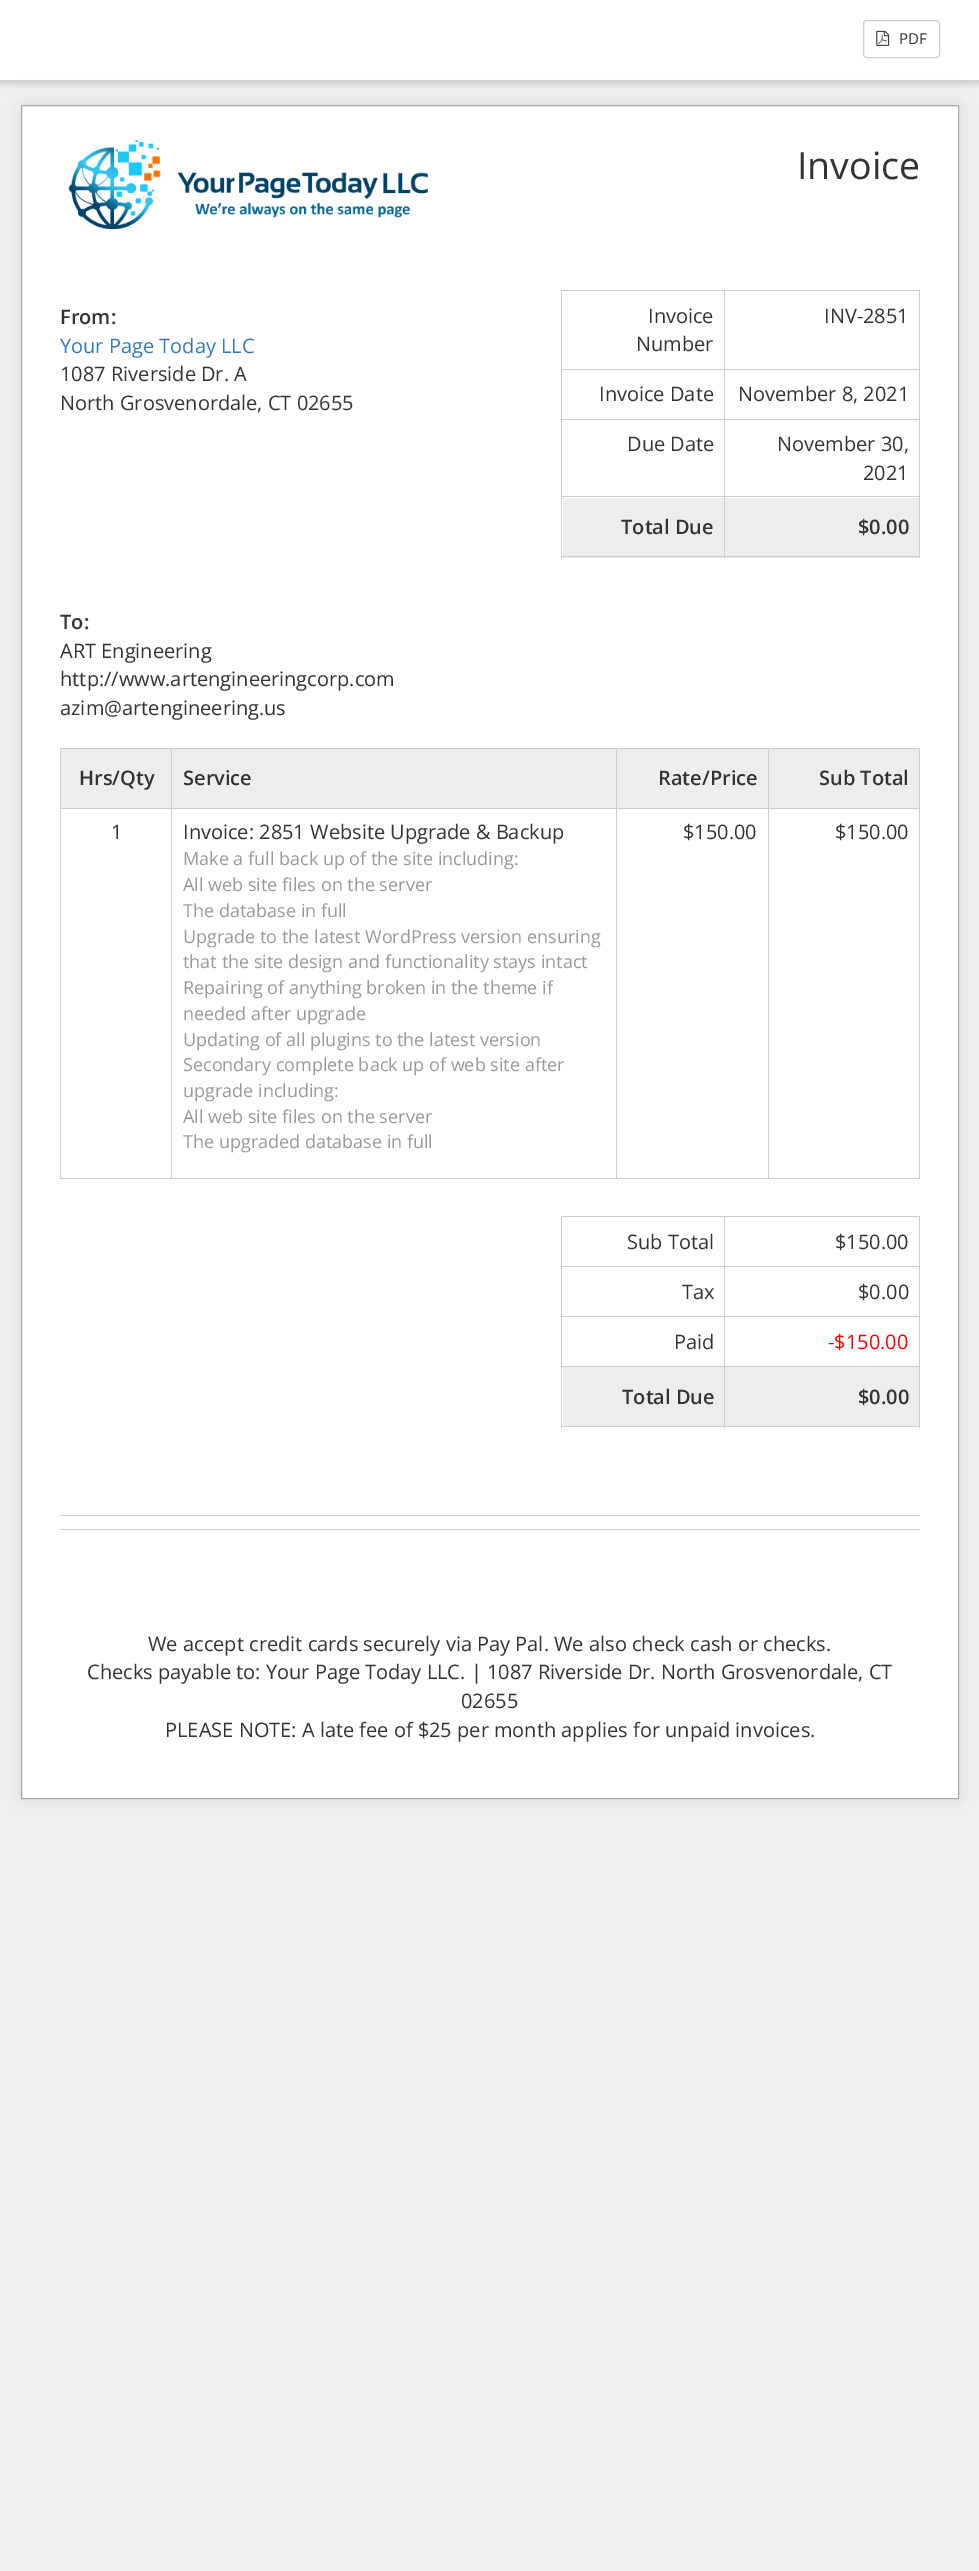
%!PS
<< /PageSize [979 2571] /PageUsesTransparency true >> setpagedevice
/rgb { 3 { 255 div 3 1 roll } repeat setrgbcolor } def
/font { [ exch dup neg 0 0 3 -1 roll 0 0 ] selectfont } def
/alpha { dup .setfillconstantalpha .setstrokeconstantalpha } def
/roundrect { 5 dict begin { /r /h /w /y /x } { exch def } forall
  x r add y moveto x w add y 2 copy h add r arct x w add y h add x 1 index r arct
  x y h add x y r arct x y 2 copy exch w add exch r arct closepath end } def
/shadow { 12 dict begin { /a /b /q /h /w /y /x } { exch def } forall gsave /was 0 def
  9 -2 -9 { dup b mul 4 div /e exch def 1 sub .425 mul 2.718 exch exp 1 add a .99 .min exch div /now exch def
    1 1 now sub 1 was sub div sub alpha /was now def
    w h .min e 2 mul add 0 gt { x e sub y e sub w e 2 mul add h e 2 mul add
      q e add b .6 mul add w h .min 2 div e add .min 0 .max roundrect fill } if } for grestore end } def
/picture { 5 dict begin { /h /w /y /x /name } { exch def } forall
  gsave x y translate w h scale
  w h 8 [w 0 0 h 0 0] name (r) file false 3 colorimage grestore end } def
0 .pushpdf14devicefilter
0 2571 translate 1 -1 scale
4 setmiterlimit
242 241 239 rgb
0 0 979 2571 rectfill
0 0 0 rgb
-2 -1 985 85 0 3 0.15 shadow
255 255 255 rgb
0 0 979 80 rectfill
204 204 204 rgb
863.5 20.5 76 37 3.5 roundrect stroke
(img/1.rgb) 876 30 14 16 picture
0 0 0 rgb
21 105 938 1694 0 12.5 0.07 shadow
255 255 255 rgb
21.5 105.5 moveto 958.5 105.5 lineto 958.5 1798.5 lineto 21.5 1798.5 lineto closepath gsave fill grestore
170 170 170 rgb
stroke
(img/2.rgb) 68 140 360 90 picture
[
  [561 290 359 1 204 204 204]
  [919 290 1 268 204 204 204]
  [563 498 161 60 237 237 237]
  [725 498 194 60 237 237 237]
  [561 556 359 1 204 204 204]
  [561 290 1 268 204 204 204]
  [724 369 196 1 204 204 204]
  [724 419 196 1 204 204 204]
  [724 496 196 1 204 204 204]
  [724 496 1 62 204 204 204]
  [561 496 164 1 204 204 204]
  [724 419 1 79 204 204 204]
  [561 419 164 1 204 204 204]
  [724 369 1 51 204 204 204]
  [561 369 164 1 204 204 204]
  [724 290 1 80 204 204 204]
  [60 748 860 1 204 204 204]
  [919 748 1 431 204 204 204]
  [60 1178 860 1 204 204 204]
  [60 748 1 431 204 204 204]
  [61 749 555 59 237 237 237]
  [768 808 152 1 204 204 204]
  [768 808 1 371 204 204 204]
  [616 808 153 1 204 204 204]
  [616 808 1 371 204 204 204]
  [171 808 447 1 204 204 204]
  [171 808 1 371 204 204 204]
  [60 808 113 1 204 204 204]
  [171 748 1 61 204 204 204]
  [617 749 151 59 237 237 237]
  [616 748 1 61 204 204 204]
  [769 749 150 59 237 237 237]
  [768 748 1 61 204 204 204]
  [561 1216 359 1 204 204 204]
  [919 1216 1 212 204 204 204]
  [561 1426 359 1 204 204 204]
  [561 1216 1 212 204 204 204]
  [724 1266 196 1 204 204 204]
  [724 1316 196 1 204 204 204]
  [724 1366 196 1 204 204 204]
  [724 1366 1 62 204 204 204]
  [561 1366 164 1 204 204 204]
  [724 1316 1 52 204 204 204]
  [561 1316 164 1 204 204 204]
  [724 1266 1 52 204 204 204]
  [561 1266 164 1 204 204 204]
  [724 1216 1 52 204 204 204]
  [563 1367 161 59 237 237 237]
  [725 1367 194 59 237 237 237]
  [60 1515 860 1 204 204 204]
  [60 1529 860 1 204 204 204]
] { aload pop rgb rectfill } forall
/OpenSans-Regular 15 font
51 51 51 rgb
899 44 moveto (PDF) show
/OpenSans-Regular 37.5 font
797 179 moveto (Invoice) show
/OpenSans-SemiBold 20 font
60 324 moveto (From:) show
/OpenSans-Regular 20 font
51 122 183 rgb
60 353 moveto (Your Page Today LLC) show
51 51 51 rgb
[
  [(1087 Riverside Dr. A) 60 381]
  [(North Grosvenordale, CT 02655) 60 410]
  [(Invoice) 648 323]
  [(Number) 636 351]
  [(INV-2851) 824 323]
  [(Invoice Date) 599 401]
  [(November 8, 2021) 738 401]
  [(Due Date) 627 451]
  [(November 30,) 777 451]
  [(2021) 863 480]
] { aload pop moveto show } forall
/OpenSans-SemiBold 20 font
[
  [(Total Due) 621 534]
  [($0.00) 858 534]
  [(To:) 60 629]
] { aload pop moveto show } forall
/OpenSans-Regular 20 font
[
  [(ART Engineering) 60 658]
  [(http://www.artengineeringcorp.com) 60 686]
  [(azim@artengineering.us) 60 715]
] { aload pop moveto show } forall
/OpenSans-SemiBold 20 font
[
  [(Hrs/Qty) 79 785]
  [(Service) 183 785]
  [(Rate/Price) 658 785]
  [(Sub Total) 819 785]
] { aload pop moveto show } forall
/OpenSans-Regular 20 font
111 839 moveto (1) show
183 839 moveto (Invoice: 2851 Website Upgrade & Backup) show
/OpenSans-Regular 18 font
153 153 153 rgb
[
  [(Make a full back up of the site including:) 183 865]
  [(All web site files on the server) 183 891]
  [(The database in full) 183 917]
  [(Upgrade to the latest WordPress version ensuring) 183 943]
  [(that the site design and functionality stays intact) 183 968]
  [(Repairing of anything broken in the theme if) 183 994]
  [(needed after upgrade) 183 1020]
  [(Updating of all plugins to the latest version) 183 1046]
  [(Secondary complete back up of web site after) 183 1071]
  [(upgrade including:) 183 1097]
  [(All web site files on the server) 183 1123]
  [(The upgraded database in full) 183 1148]
] { aload pop moveto show } forall
/OpenSans-Regular 20 font
51 51 51 rgb
[
  [($150.00) 683 839]
  [($150.00) 835 839]
  [(Sub Total) 627 1249]
  [($150.00) 835 1249]
  [(Tax) 682 1299]
  [($0.00) 858 1299]
  [(Paid) 674 1349]
] { aload pop moveto show } forall
255 0 0 rgb
828 1349 moveto (-$150.00) show
/OpenSans-SemiBold 20 font
51 51 51 rgb
622 1404 moveto (Total Due) show
858 1404 moveto ($0.00) show
/OpenSans-Regular 20 font
[
  [(We accept credit cards securely via Pay Pal. We also check cash or checks.) 148 1651]
  [(Checks payable to: Your Page Today LLC. | 1087 Riverside Dr. North Grosvenordale, CT) 87 1679]
  [(02655) 461 1708]
  [(PLEASE NOTE: A late fee of $25 per month applies for unpaid invoices.) 165 1737]
] { aload pop moveto show } forall
.poppdf14devicefilter showpage
